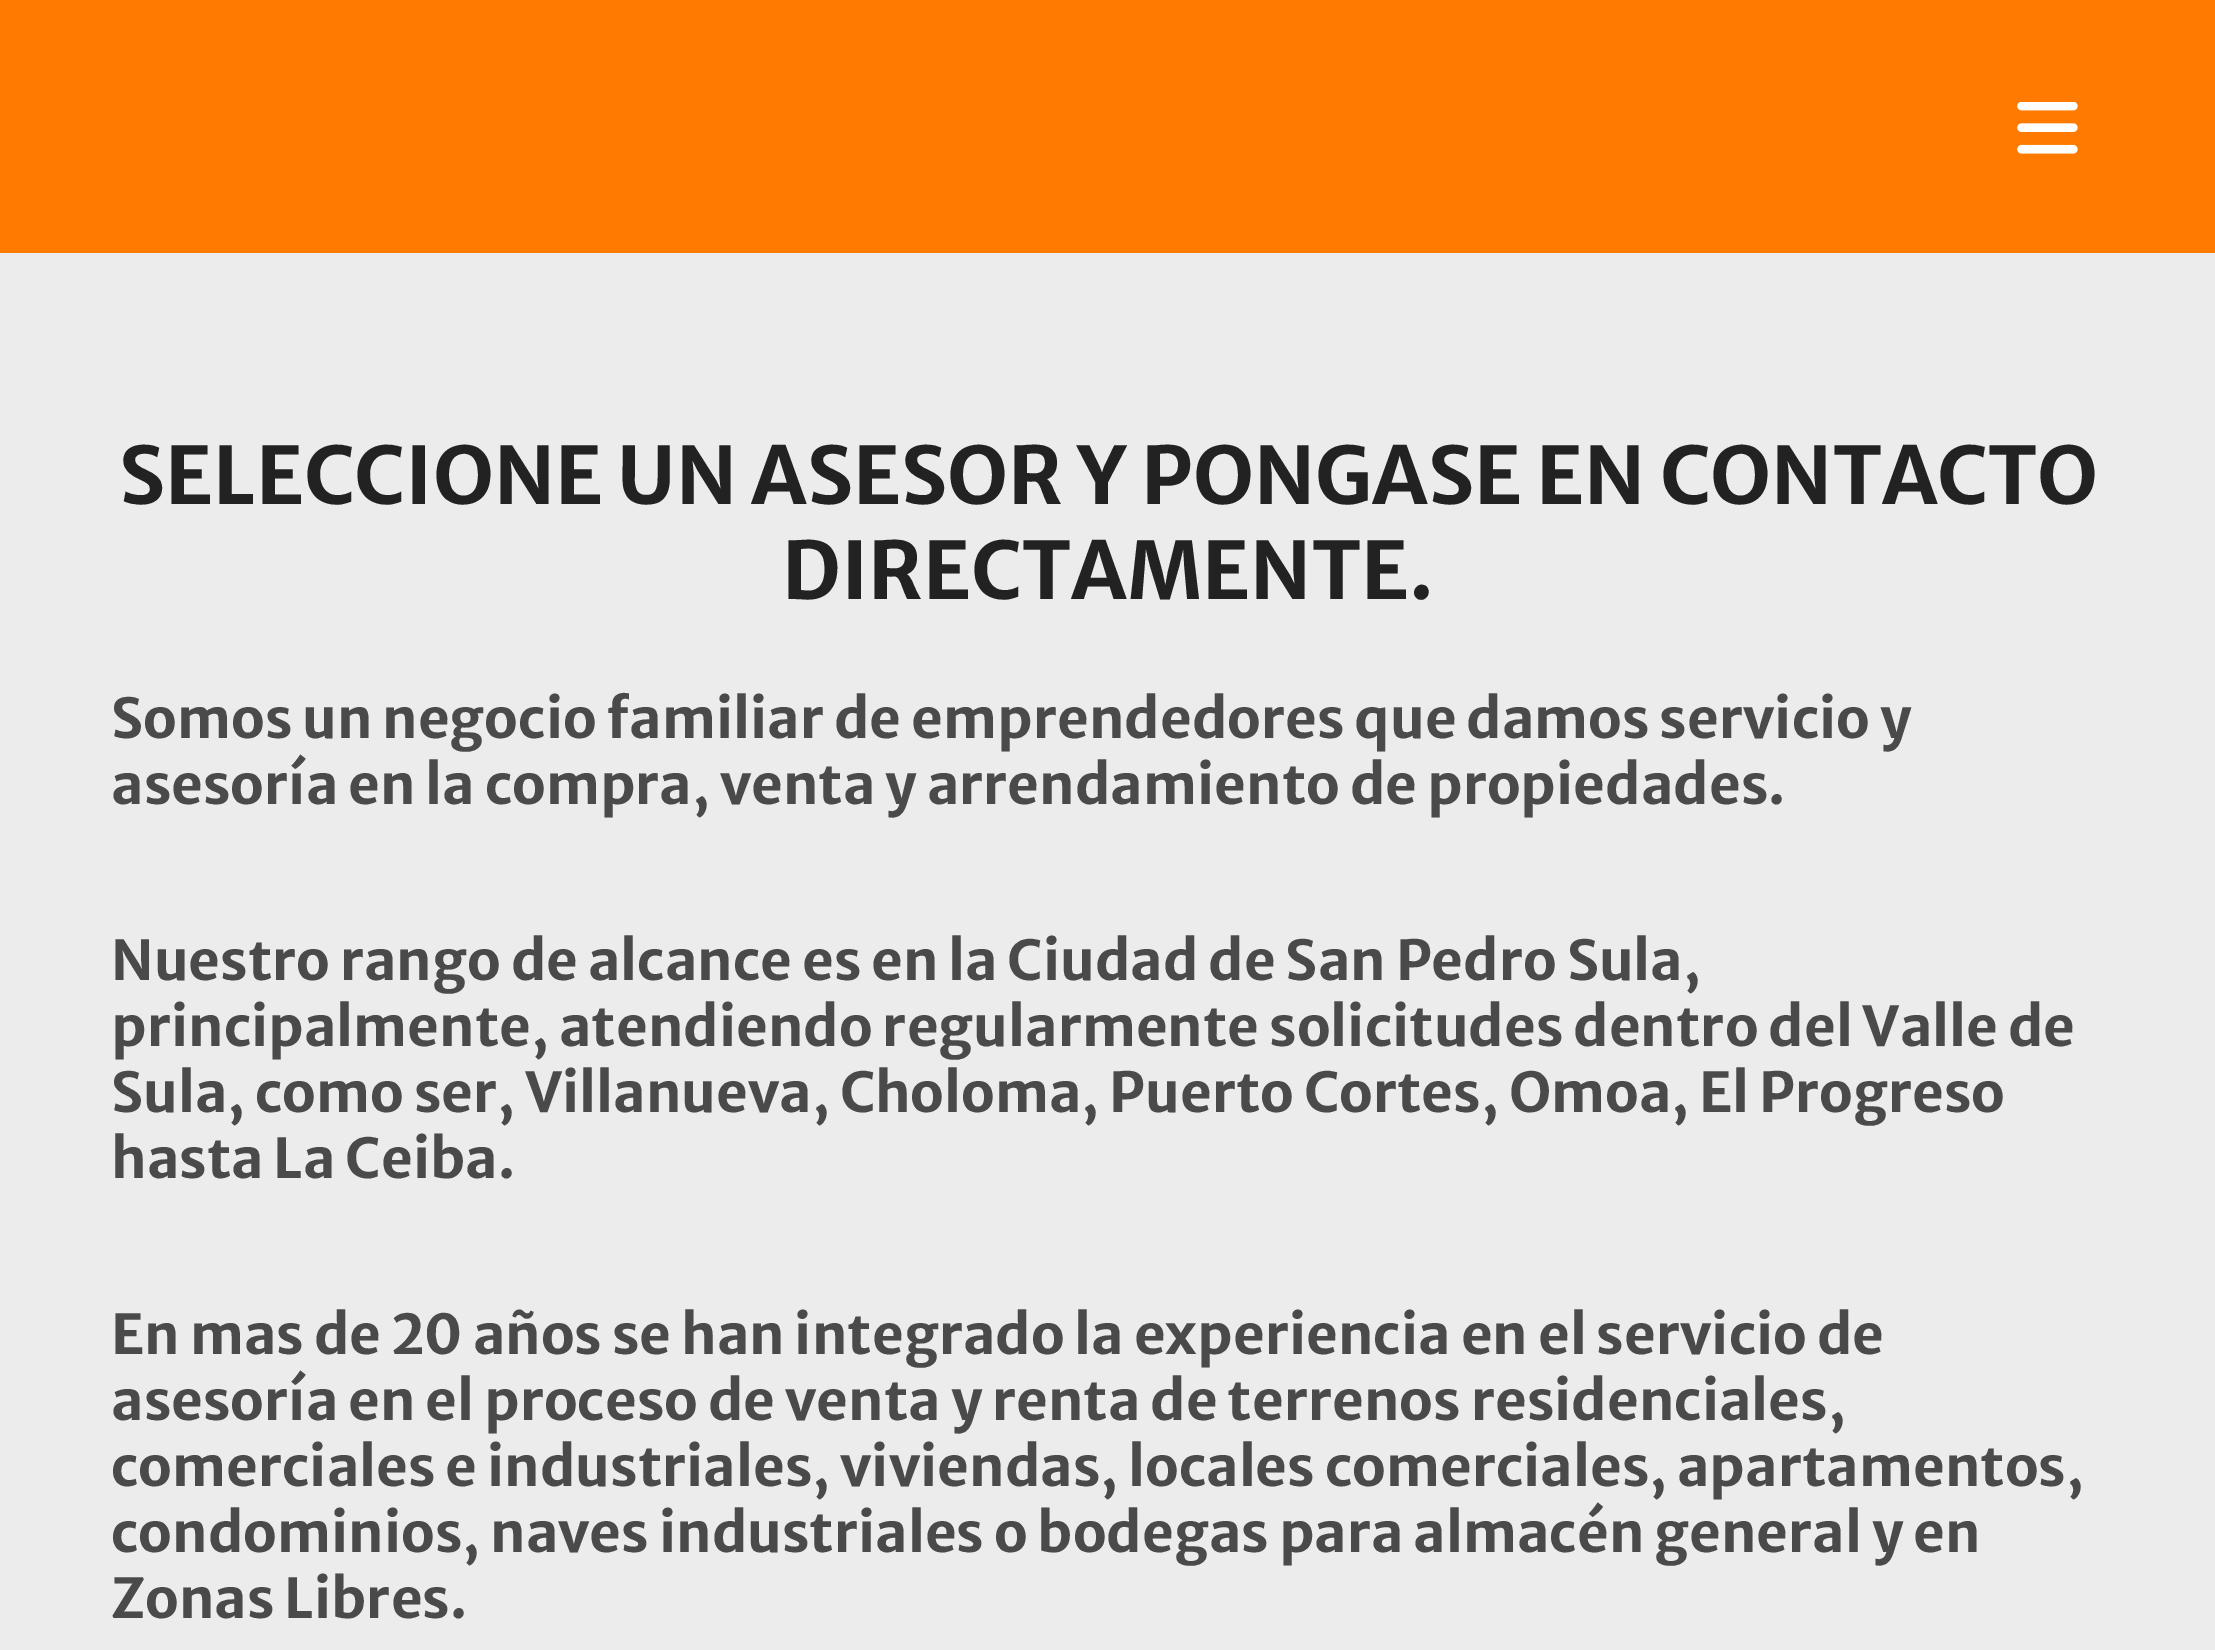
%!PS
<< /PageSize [2215 1650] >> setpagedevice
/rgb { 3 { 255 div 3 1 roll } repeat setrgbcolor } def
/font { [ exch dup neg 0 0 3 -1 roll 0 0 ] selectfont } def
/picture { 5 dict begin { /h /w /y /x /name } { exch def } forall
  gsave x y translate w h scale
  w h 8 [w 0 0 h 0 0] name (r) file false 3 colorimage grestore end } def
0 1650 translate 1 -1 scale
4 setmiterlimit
236 236 236 rgb
0 0 2215 1650 rectfill
255 122 0 rgb
0 0 2215 253 rectfill
(img/1.rgb) 2017 102 61 52 picture
/MerriweatherSans-Bold 79.2 font
34 34 34 rgb
119 504 moveto (SELECCIONE UN ASESOR Y PONGASE EN CONTACTO) show
782 599 moveto (DIRECTAMENTE.) show
/MerriweatherSans-Bold 55 font
74 74 74 rgb
[
  [(Somos un negocio familiar de emprendedores que damos servicio y) 111 738]
  [(asesoría en la compra, venta y arrendamiento de propiedades.) 111 804]
  [(Nuestro rango de alcance es en la Ciudad de San Pedro Sula,) 111 980]
  [(principalmente, atendiendo regularmente solicitudes dentro del Valle de) 111 1046]
  [(Sula, como ser, Villanueva, Choloma, Puerto Cortes, Omoa, El Progreso) 111 1112]
  [(hasta La Ceiba.) 111 1178]
  [(En mas de 20 años se han integrado la experiencia en el servicio de) 111 1354]
  [(asesoría en el proceso de venta y renta de terrenos residenciales,) 111 1420]
  [(comerciales e industriales, viviendas, locales comerciales, apartamentos,) 111 1486]
  [(condominios, naves industriales o bodegas para almacén general y en) 111 1552]
  [(Zonas Libres.) 111 1618]
] { aload pop moveto show } forall
showpage
